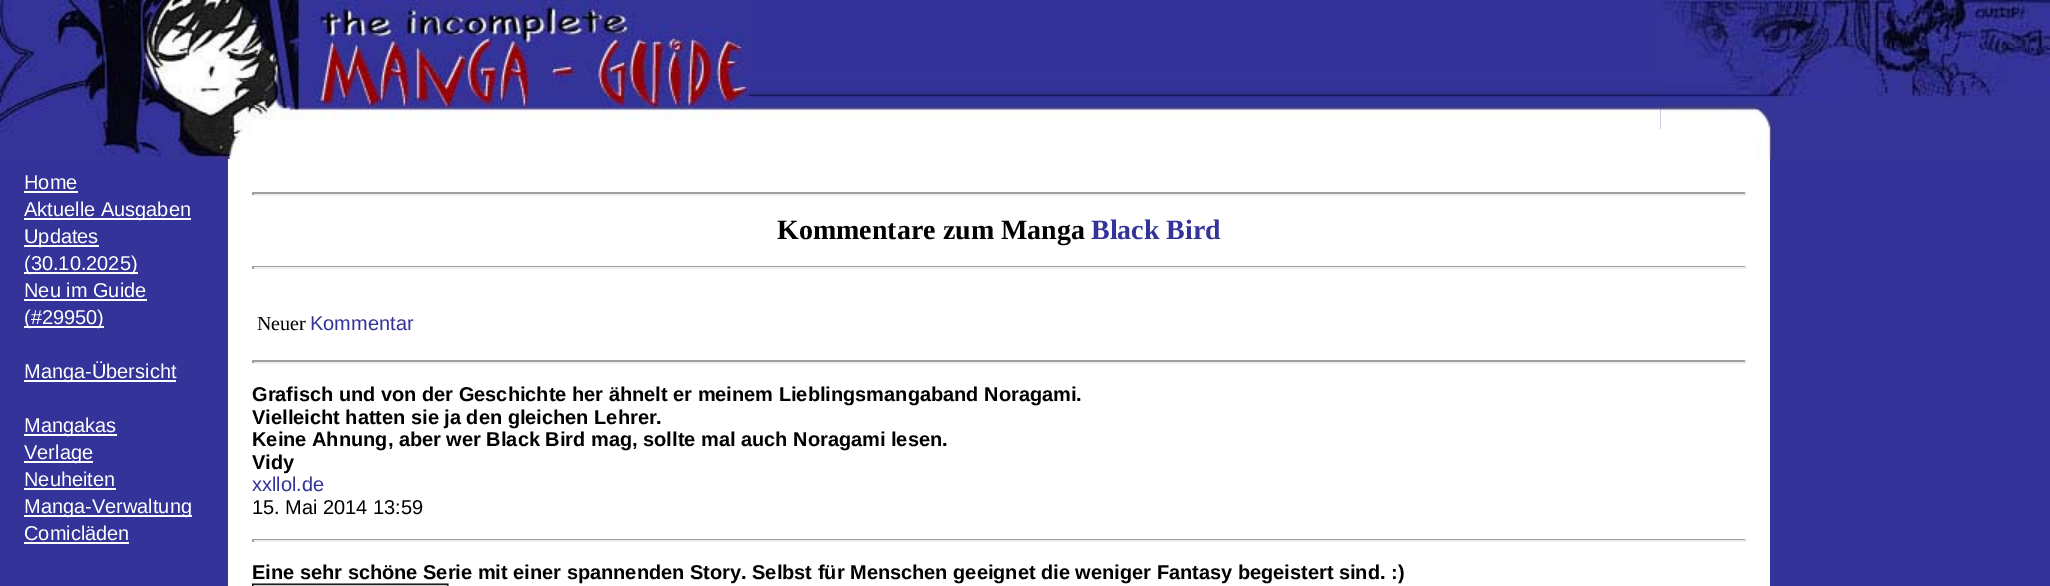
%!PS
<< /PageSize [2050 586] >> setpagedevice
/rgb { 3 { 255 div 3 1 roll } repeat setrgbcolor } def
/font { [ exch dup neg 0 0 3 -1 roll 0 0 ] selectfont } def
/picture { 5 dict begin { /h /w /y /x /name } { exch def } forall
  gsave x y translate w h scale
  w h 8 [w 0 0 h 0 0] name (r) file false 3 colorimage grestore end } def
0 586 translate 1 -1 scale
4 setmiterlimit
51 51 153 rgb
0 0 2050 586 rectfill
255 255 255 rgb
228 129 1542 457 rectfill
(img/1.rgb) 0 0 750 159 picture
(img/2.rgb) 750 76 911 53 picture
(img/3.rgb) 1660 0 390 159 picture
[
  [24 191 54 2 255 255 255]
  [24 218 167 2 255 255 255]
  [24 245 75 2 255 255 255]
  [24 272 114 2 255 255 255]
  [24 299 123 2 255 255 255]
  [24 326 80 2 255 255 255]
  [24 380 152 2 255 255 255]
  [24 434 93 2 255 255 255]
  [24 461 69 2 255 255 255]
  [24 488 92 2 255 255 255]
  [24 515 168 2 255 255 255]
  [24 542 105 2 255 255 255]
  [252 192 1494 2 159 159 159]
  [1745 192 2 3 238 238 238]
  [252 194 1494 2 238 238 238]
  [252 192 2 3 159 159 159]
  [252 266 1494 1 159 159 159]
  [1745 266 2 3 238 238 238]
  [252 267 1494 2 238 238 238]
  [252 266 2 3 159 159 159]
  [252 360 1494 2 159 159 159]
  [1745 360 2 3 238 238 238]
  [252 362 1494 2 238 238 238]
  [252 360 2 3 159 159 159]
  [252 539 1494 1 159 159 159]
  [1745 539 2 3 238 238 238]
  [252 540 1494 2 238 238 238]
  [252 539 2 3 159 159 159]
] { aload pop rgb rectfill } forall
/LiberationSans-Regular 20 font
255 255 255 rgb
[
  [(Home) 24 189]
  [(Aktuelle Ausgaben) 24 216]
  [(Updates) 24 243]
  [(\(30.10.2025\)) 24 270]
  [(Neu im Guide) 24 297]
  [(\(#29950\)) 24 324]
  [(Manga-Übersicht) 24 378]
  [(Mangakas) 24 432]
  [(Verlage) 24 459]
  [(Neuheiten) 24 486]
  [(Manga-Verwaltung) 24 513]
  [(Comicläden) 24 540]
] { aload pop moveto show } forall
/LiberationSerif-Bold 28 font
0 0 0 rgb
777 239 moveto (Kommentare zum Manga) show
51 51 153 rgb
1091 239 moveto (Black Bird) show
/LiberationSerif-Regular 20 font
0 0 0 rgb
257 330 moveto (Neuer) show
/LiberationSans-Regular 20 font
51 51 153 rgb
310 330 moveto (Kommentar) show
/LiberationSans-Bold 20 font
0 0 0 rgb
[
  [(Grafisch und von der Geschichte her ähnelt er meinem Lieblingsmangaband Noragami.) 252 401]
  [(Vielleicht hatten sie ja den gleichen Lehrer.) 252 424]
  [(Keine Ahnung, aber wer Black Bird mag, sollte mal auch Noragami lesen.) 252 446]
  [(Vidy) 252 469]
] { aload pop moveto show } forall
/LiberationSans-Regular 20 font
51 51 153 rgb
252 491 moveto (xxllol.de) show
0 0 0 rgb
252 514 moveto (15. Mai 2014 13:59) show
/LiberationSans-Bold 20 font
252 579 moveto (Eine sehr schöne Serie mit einer spannenden Story. Selbst für Menschen geeignet die weniger Fantasy begeistert sind. :\)) show
(img/4.rgb) 252 583 197 3 picture
showpage
